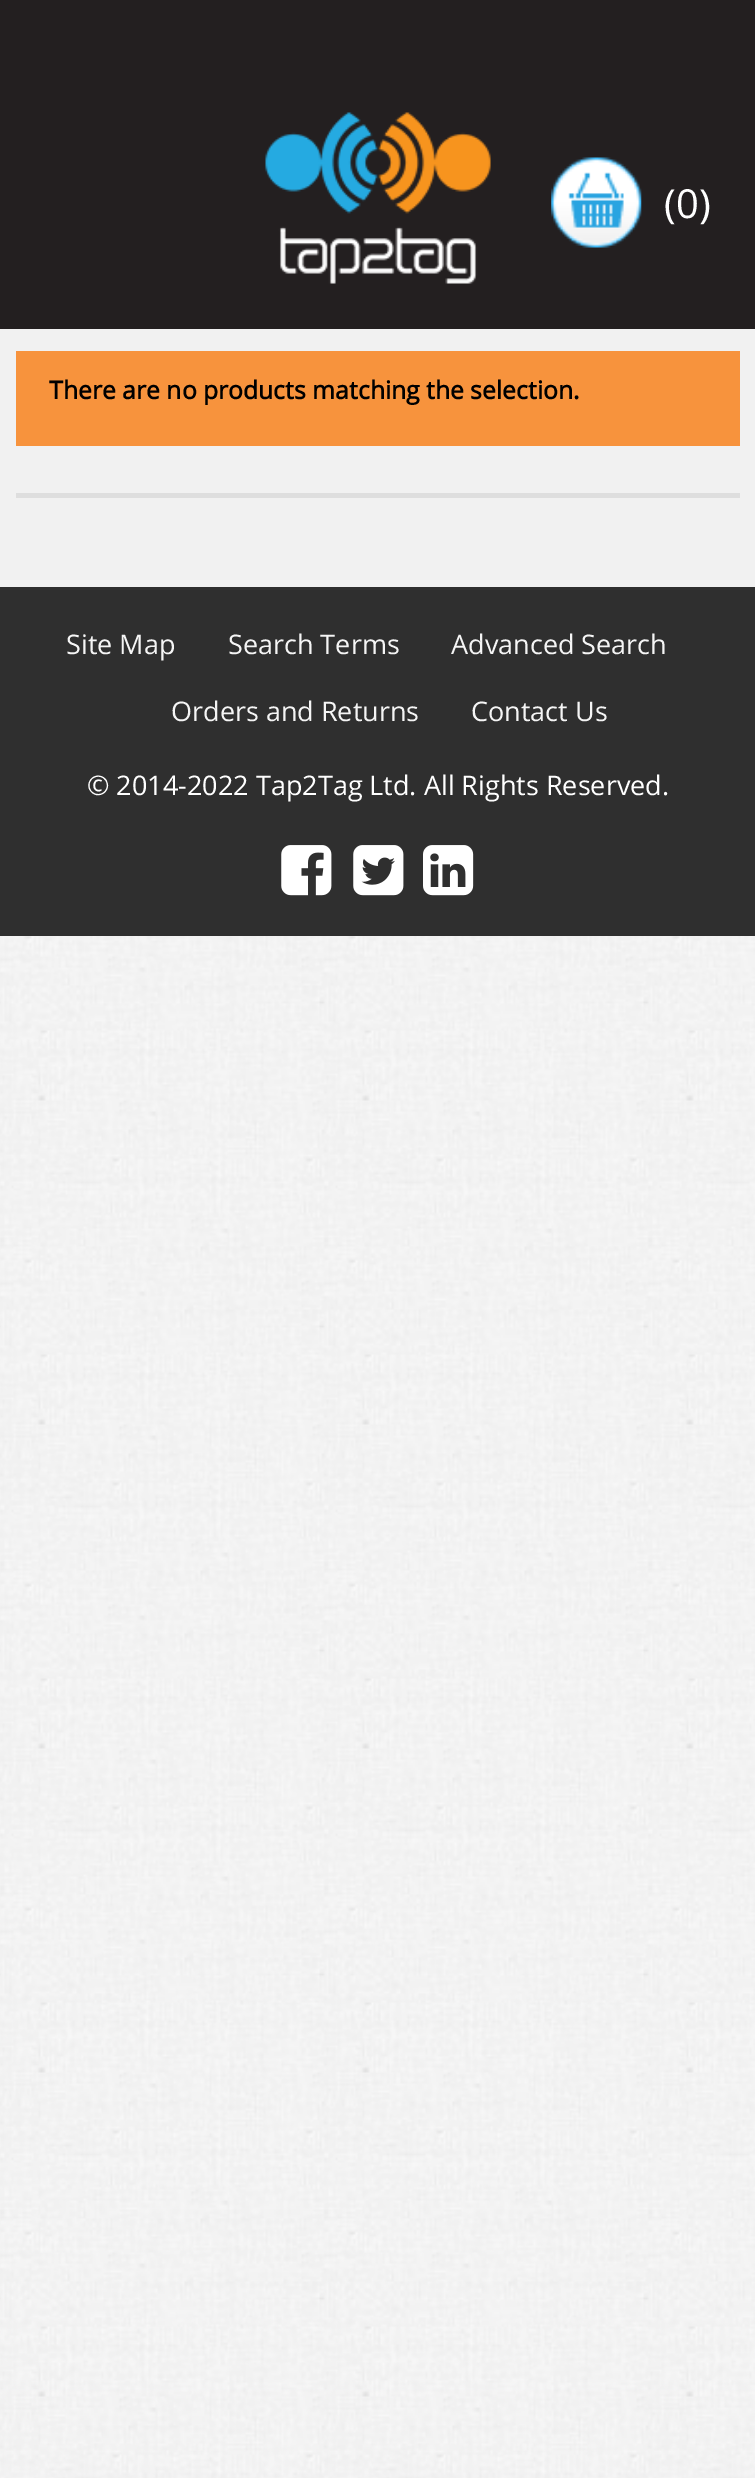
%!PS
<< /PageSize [755 2478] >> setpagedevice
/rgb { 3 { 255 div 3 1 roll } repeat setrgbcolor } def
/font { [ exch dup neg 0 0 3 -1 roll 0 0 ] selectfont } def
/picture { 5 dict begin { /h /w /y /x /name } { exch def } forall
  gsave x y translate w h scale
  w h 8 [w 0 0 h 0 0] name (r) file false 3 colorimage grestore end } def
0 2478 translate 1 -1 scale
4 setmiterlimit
255 255 255 rgb
0 0 755 2478 rectfill
(img/1.rgb) 0 936 755 1542 picture
241 241 241 rgb
0 329 755 258 rectfill
35 31 32 rgb
0 0 755 329 rectfill
(img/2.rgb) 265 112 226 172 picture
(img/3.rgb) 551 157 91 91 picture
[
  [16 351 724 95 247 147 61]
  [16 493 724 5 222 222 222]
  [0 587 755 349 47 47 47]
] { aload pop rgb rectfill } forall
(img/4.rgb) 281 845 51 51 picture
(img/5.rgb) 353 845 51 51 picture
(img/6.rgb) 423 845 51 51 picture
/OpenSans-Regular 40 font
255 255 255 rgb
664 218 moveto (\(0\)) show
/OpenSans-Bold 24.75 font
0 0 0 rgb
49 399 moveto (There are no products matching the selection.) show
/OpenSans-Regular 27 font
245 245 245 rgb
[
  [(Site Map) 66 654]
  [(Search Terms) 228 654]
  [(Advanced Search) 451 654]
  [(Orders and Returns) 171 721]
  [(Contact Us) 471 721]
] { aload pop moveto show } forall
255 255 255 rgb
87 795 moveto (© 2014-2022 Tap2Tag Ltd. All Rights Reserved.) show
showpage
